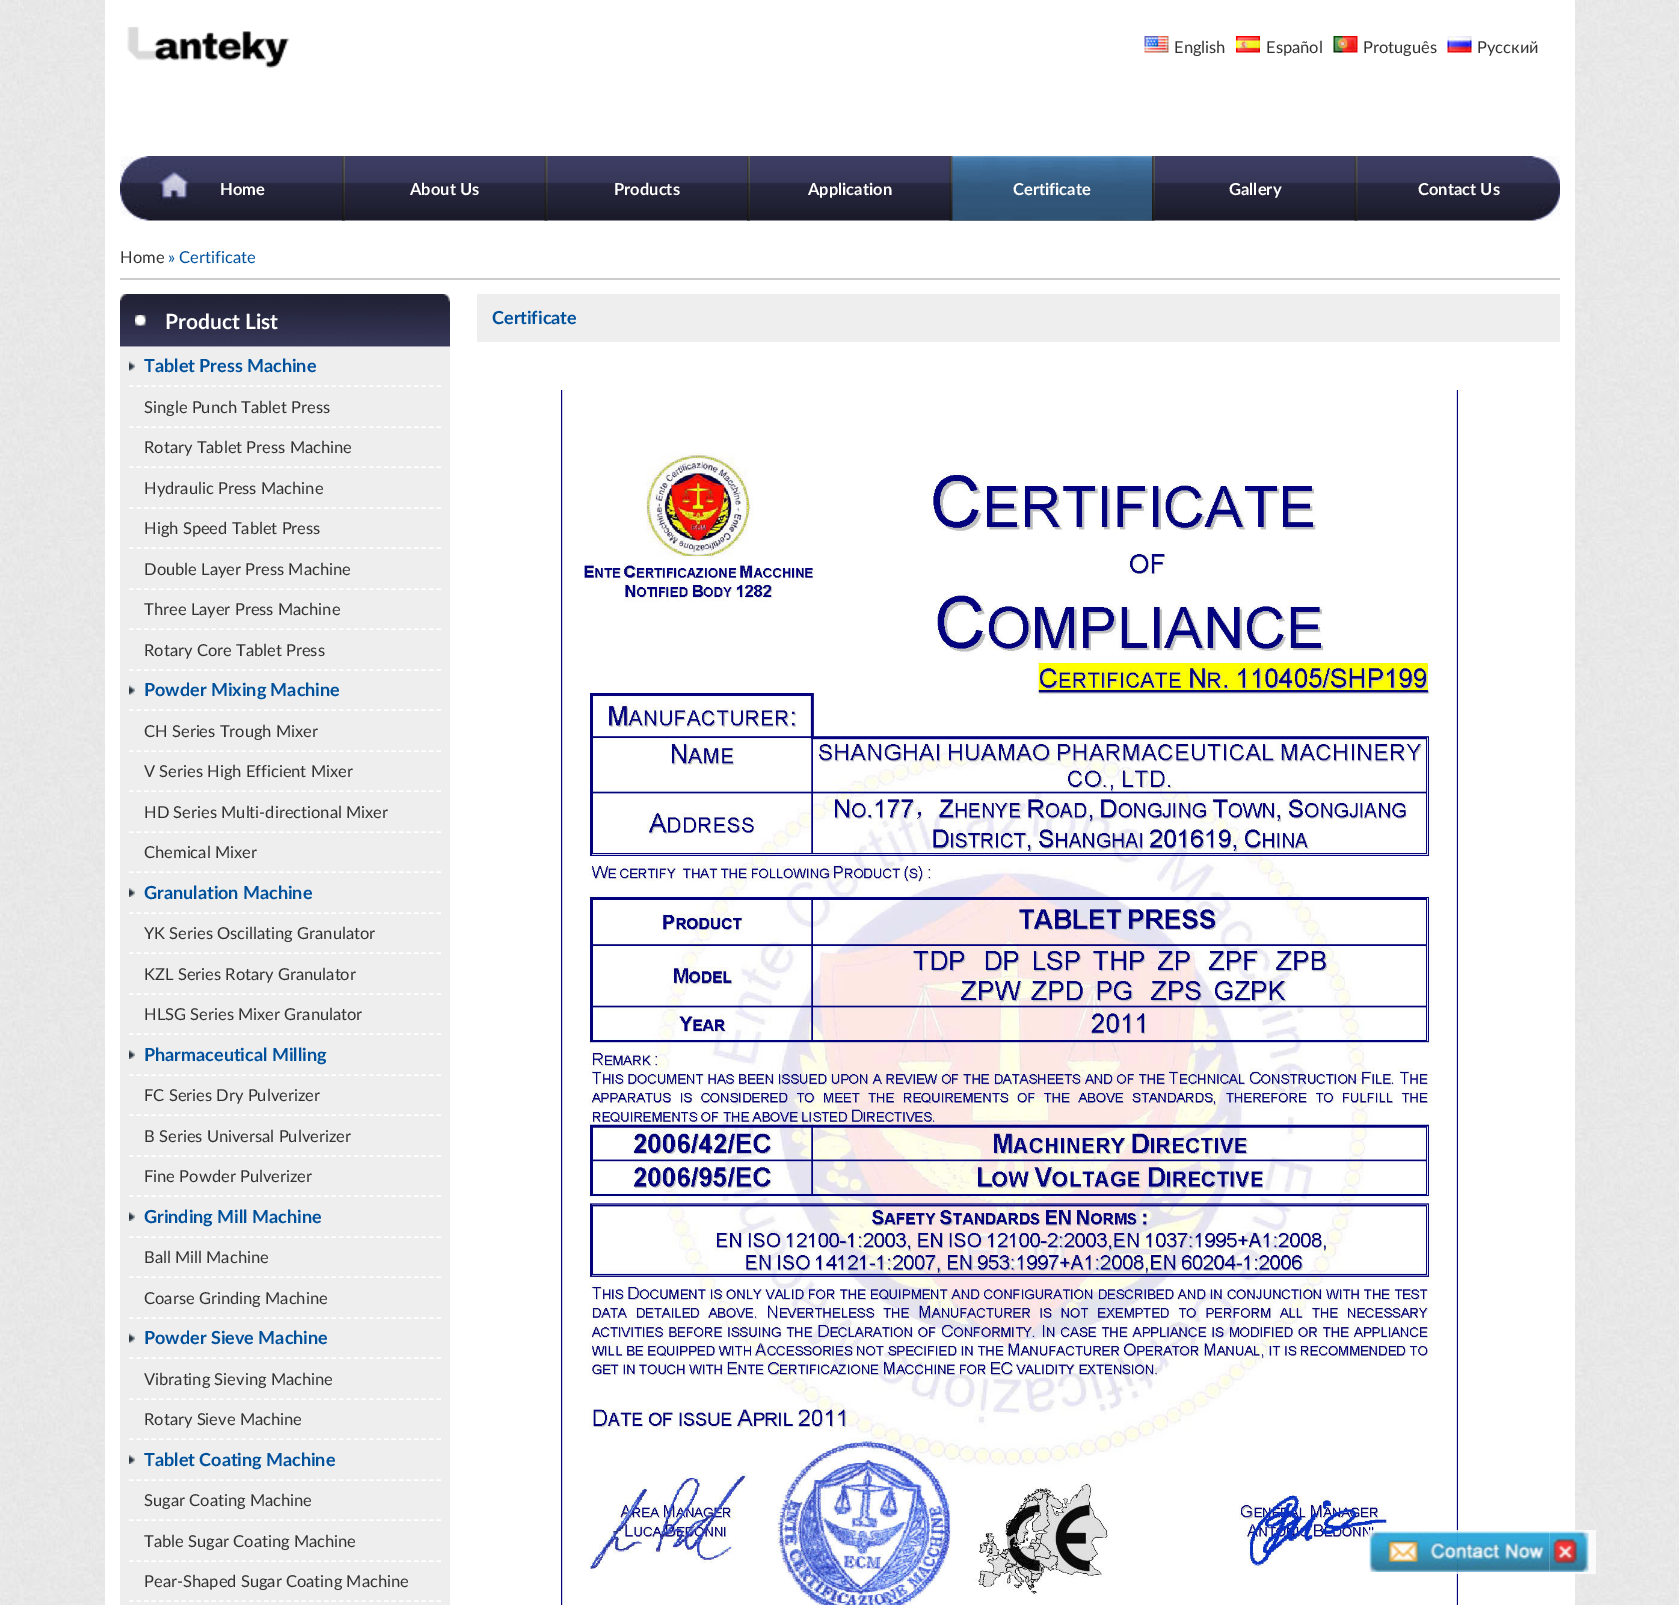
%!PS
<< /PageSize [1679 1605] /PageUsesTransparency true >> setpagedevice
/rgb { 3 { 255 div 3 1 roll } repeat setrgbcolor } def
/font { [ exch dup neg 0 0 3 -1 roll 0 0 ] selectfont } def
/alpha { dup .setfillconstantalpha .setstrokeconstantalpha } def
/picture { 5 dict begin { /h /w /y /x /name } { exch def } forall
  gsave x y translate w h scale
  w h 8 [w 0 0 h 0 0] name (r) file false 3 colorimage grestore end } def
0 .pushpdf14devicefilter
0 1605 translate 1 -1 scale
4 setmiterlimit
255 255 255 rgb
0 0 1679 1605 rectfill
(img/1.rgb) 0 0 1679 1605 picture
105 0 1470 1605 rectfill
(img/2.rgb) 127 26 163 42 picture
(img/3.rgb) 1144 36 25 17 picture
(img/4.rgb) 1236 36 24 17 picture
(img/5.rgb) 1333 36 25 17 picture
(img/6.rgb) 1447 36 25 17 picture
(img/7.rgb) 120 156 1440 65 picture
(img/8.rgb) 342 156 3 65 picture
(img/9.rgb) 544 156 4 65 picture
(img/8.rgb) 747 156 3 65 picture
(img/9.rgb) 949 156 4 65 picture
(img/8.rgb) 1152 156 3 65 picture
(img/10.rgb) 952 156 200 65 picture
(img/9.rgb) 1354 156 4 65 picture
204 204 204 rgb
120 278 1440 2 rectfill
(img/11.rgb) 120 294 330 53 picture
(img/12.rgb) 135 315 11 11 picture
238 238 238 rgb
120 347 330 1258 rectfill
(img/13.rgb) 129 361 6 10 picture
255 255 255 rgb
1.5 setlinewidth
[4.5 3] 0 setdash
129 386 moveto 441 386 lineto stroke
129 427 moveto 441 427 lineto stroke
129 467 moveto 441 467 lineto stroke
129 508 moveto 441 508 lineto stroke
129 548 moveto 441 548 lineto stroke
129 589 moveto 441 589 lineto stroke
129 629 moveto 441 629 lineto stroke
129 670 moveto 441 670 lineto stroke
(img/13.rgb) 129 685 6 10 picture
129 710 moveto 441 710 lineto stroke
129 751 moveto 441 751 lineto stroke
129 791 moveto 441 791 lineto stroke
129 832 moveto 441 832 lineto stroke
129 872 moveto 441 872 lineto stroke
(img/14.rgb) 129 888 6 9 picture
129 913 moveto 441 913 lineto stroke
129 953 moveto 441 953 lineto stroke
129 994 moveto 441 994 lineto stroke
129 1034 moveto 441 1034 lineto stroke
(img/14.rgb) 129 1050 6 9 picture
129 1075 moveto 441 1075 lineto stroke
129 1115 moveto 441 1115 lineto stroke
129 1156 moveto 441 1156 lineto stroke
129 1196 moveto 441 1196 lineto stroke
(img/14.rgb) 129 1212 6 9 picture
129 1237 moveto 441 1237 lineto stroke
129 1277 moveto 441 1277 lineto stroke
129 1318 moveto 441 1318 lineto stroke
(img/13.rgb) 129 1333 6 10 picture
129 1358 moveto 441 1358 lineto stroke
129 1399 moveto 441 1399 lineto stroke
129 1439 moveto 441 1439 lineto stroke
(img/14.rgb) 129 1455 6 9 picture
129 1480 moveto 441 1480 lineto stroke
129 1520 moveto 441 1520 lineto stroke
129 1561 moveto 441 1561 lineto stroke
129 1601 moveto 441 1601 lineto stroke
238 238 238 rgb
477 294 1083 48 rectfill
(img/15.rgb) 561 390 898 1215 picture
0.8 alpha
255 255 255 rgb
1368 1530 228 44 rectfill
1 alpha
(img/16.rgb) 1369 1531 181 41 picture
(img/17.rgb) 1549 1531 40 41 picture
/Lato-Regular 16.5 font
51 51 51 rgb
[
  [(English) 1174 53]
  [(Español) 1266 53]
  [(Protuguês) 1363 53]
  [(Русский) 1477 53]
] { aload pop moveto show } forall
/Lato-Bold 16.5 font
255 255 255 rgb
[
  [(Home) 220 195]
  [(About Us) 410 195]
  [(Products) 614 195]
  [(Application) 808 195]
  [(Certificate) 1013 195]
  [(Gallery) 1229 195]
  [(Contact Us) 1418 195]
] { aload pop moveto show } forall
/Lato-Regular 16.5 font
51 51 51 rgb
120 263 moveto (Home) show
0 81 156 rgb
168 263 moveto (» Certificate) show
/Lato-Bold 21 font
255 255 255 rgb
165 329 moveto (Product List) show
/Lato-Bold 18 font
0 81 156 rgb
144 372 moveto (Tablet Press Machine) show
/Lato-Regular 16.5 font
51 51 51 rgb
[
  [(Single Punch Tablet Press) 144 413]
  [(Rotary Tablet Press Machine) 144 453]
  [(Hydraulic Press Machine) 144 494]
  [(High Speed Tablet Press) 144 534]
  [(Double Layer Press Machine) 144 575]
  [(Three Layer Press Machine) 144 615]
  [(Rotary Core Tablet Press) 144 656]
] { aload pop moveto show } forall
/Lato-Bold 18 font
0 81 156 rgb
144 696 moveto (Powder Mixing Machine) show
/Lato-Regular 16.5 font
51 51 51 rgb
[
  [(CH Series Trough Mixer) 144 737]
  [(V Series High Efficient Mixer) 144 777]
  [(HD Series Multi-directional Mixer) 144 818]
  [(Chemical Mixer) 144 858]
] { aload pop moveto show } forall
/Lato-Bold 18 font
0 81 156 rgb
144 899 moveto (Granulation Machine) show
/Lato-Regular 16.5 font
51 51 51 rgb
[
  [(YK Series Oscillating Granulator) 144 939]
  [(KZL Series Rotary Granulator) 144 980]
  [(HLSG Series Mixer Granulator) 144 1020]
] { aload pop moveto show } forall
/Lato-Bold 18 font
0 81 156 rgb
144 1061 moveto (Pharmaceutical Milling) show
/Lato-Regular 16.5 font
51 51 51 rgb
[
  [(FC Series Dry Pulverizer) 144 1101]
  [(B Series Universal Pulverizer) 144 1142]
  [(Fine Powder Pulverizer) 144 1182]
] { aload pop moveto show } forall
/Lato-Bold 18 font
0 81 156 rgb
144 1223 moveto (Grinding Mill Machine) show
/Lato-Regular 16.5 font
51 51 51 rgb
144 1263 moveto (Ball Mill Machine) show
144 1304 moveto (Coarse Grinding Machine) show
/Lato-Bold 18 font
0 81 156 rgb
144 1344 moveto (Powder Sieve Machine) show
/Lato-Regular 16.5 font
51 51 51 rgb
144 1385 moveto (Vibrating Sieving Machine) show
144 1425 moveto (Rotary Sieve Machine) show
/Lato-Bold 18 font
0 81 156 rgb
144 1466 moveto (Tablet Coating Machine) show
/Lato-Regular 16.5 font
51 51 51 rgb
[
  [(Sugar Coating Machine) 144 1506]
  [(Table Sugar Coating Machine) 144 1547]
  [(Pear-Shaped Sugar Coating Machine) 144 1587]
] { aload pop moveto show } forall
/Lato-Bold 18 font
0 81 156 rgb
492 324 moveto (Certificate) show
.poppdf14devicefilter showpage
